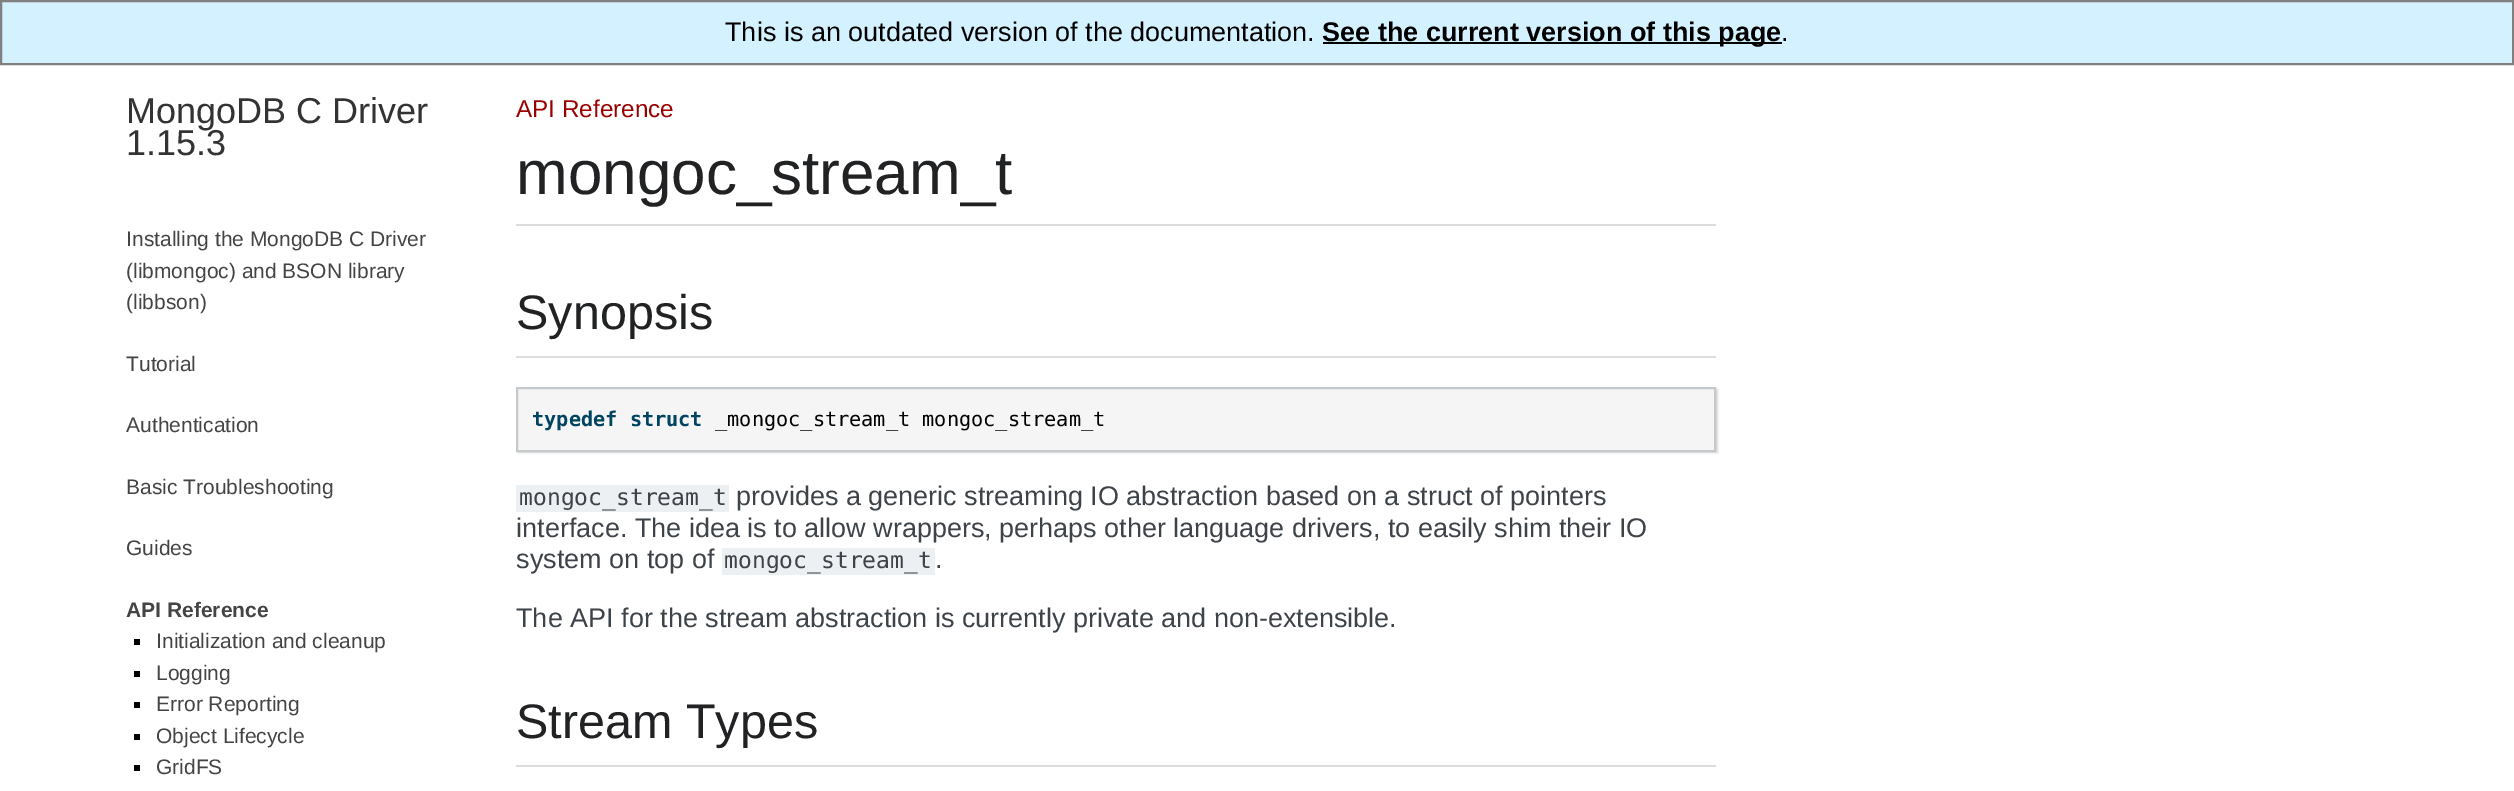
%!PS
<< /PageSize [2514 791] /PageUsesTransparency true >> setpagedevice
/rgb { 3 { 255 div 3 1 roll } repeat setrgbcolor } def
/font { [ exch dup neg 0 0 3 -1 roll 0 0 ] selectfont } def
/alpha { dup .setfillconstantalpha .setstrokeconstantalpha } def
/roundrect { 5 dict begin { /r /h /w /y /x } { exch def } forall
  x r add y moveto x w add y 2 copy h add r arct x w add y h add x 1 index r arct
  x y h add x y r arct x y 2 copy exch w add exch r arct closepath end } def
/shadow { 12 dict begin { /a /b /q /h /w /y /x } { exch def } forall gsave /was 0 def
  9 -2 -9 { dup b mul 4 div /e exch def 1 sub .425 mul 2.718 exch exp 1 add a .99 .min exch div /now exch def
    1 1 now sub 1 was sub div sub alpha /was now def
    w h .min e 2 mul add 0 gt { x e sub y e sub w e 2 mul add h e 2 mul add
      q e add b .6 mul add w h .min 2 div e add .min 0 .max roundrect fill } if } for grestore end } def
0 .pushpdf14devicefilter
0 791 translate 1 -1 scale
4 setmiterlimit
255 255 255 rgb
0 0 2514 791 rectfill
212 241 255 rgb
1 1 moveto 2513 1 lineto 2513 64 lineto 1 64 lineto closepath gsave fill grestore
128 128 128 rgb
2 setlinewidth
stroke
[
  [1323 42 459 2 0 0 0]
  [134 639 6 6 0 0 0]
  [134 671 6 6 0 0 0]
  [134 702 6 6 0 0 0]
  [134 734 6 6 0 0 0]
  [134 765 6 6 0 0 0]
  [516 224 1200 2 221 221 221]
  [516 356 1200 2 221 221 221]
] { aload pop rgb rectfill } forall
216 216 216 rgb
518 389 1200 64 0 1 1 shadow
245 245 245 rgb
517 388 moveto 1715 388 lineto 1715 451 lineto 517 451 lineto closepath gsave fill grestore
198 201 203 rgb
stroke
[
  [516 485 213 27 236 240 243]
  [722 548 213 27 236 240 243]
  [516 765 1200 2 221 221 221]
] { aload pop rgb rectfill } forall
/LiberationSans-Regular 27 font
0 0 0 rgb
725 41 moveto (This is an outdated version of the documentation.) show
/LiberationSans-Bold 27 font
1322 41 moveto (See the current version of this page) show
/LiberationSans-Regular 27 font
1781 41 moveto (.) show
/LiberationSans-Regular 36 font
51 51 51 rgb
126 123 moveto (MongoDB C Driver) show
126 155 moveto (1.15.3) show
/LiberationSans-Regular 21 font
68 68 68 rgb
[
  [(Installing the MongoDB C Driver) 126 246]
  [(\(libmongoc\) and BSON library) 126 278]
  [(\(libbson\)) 126 309]
  [(Tutorial) 126 371]
  [(Authentication) 126 432]
  [(Basic Troubleshooting) 126 494]
  [(Guides) 126 555]
] { aload pop moveto show } forall
/LiberationSans-Bold 21 font
126 617 moveto (API Reference) show
/LiberationSans-Regular 21 font
[
  [(Initialization and cleanup) 156 648]
  [(Logging) 156 680]
  [(Error Reporting) 156 711]
  [(Object Lifecycle) 156 743]
  [(GridFS) 156 774]
] { aload pop moveto show } forall
/LiberationSans-Regular 24.25 font
153 0 0 rgb
516 117 moveto (API Reference) show
/LiberationSans-Regular 62 font
33 34 36 rgb
516 194 moveto (mongoc_stream_t) show
/LiberationSans-Regular 48.5 font
516 329 moveto (Synopsis) show
/DejaVuSansMono-Bold 20.25 font
0 68 97 rgb
532 426 moveto (typedef struct) show
/DejaVuSansMono-Regular 20.25 font
0 0 0 rgb
715 426 moveto (_mongoc_stream_t mongoc_stream_t) show
/DejaVuSansMono-Regular 23 font
62 67 73 rgb
519 505 moveto (mongoc_stream_t) show
/LiberationSans-Regular 27 font
[
  [(provides a generic streaming IO abstraction based on a struct of pointers) 736 505]
  [(interface. The idea is to allow wrappers, perhaps other language drivers, to easily shim their IO) 516 537]
  [(system on top of) 516 568]
] { aload pop moveto show } forall
/DejaVuSansMono-Regular 23 font
724 568 moveto (mongoc_stream_t) show
/LiberationSans-Regular 27 font
935 568 moveto (.) show
516 627 moveto (The API for the stream abstraction is currently private and non-extensible.) show
/LiberationSans-Regular 48.5 font
33 34 36 rgb
516 738 moveto (Stream Types) show
.poppdf14devicefilter showpage
